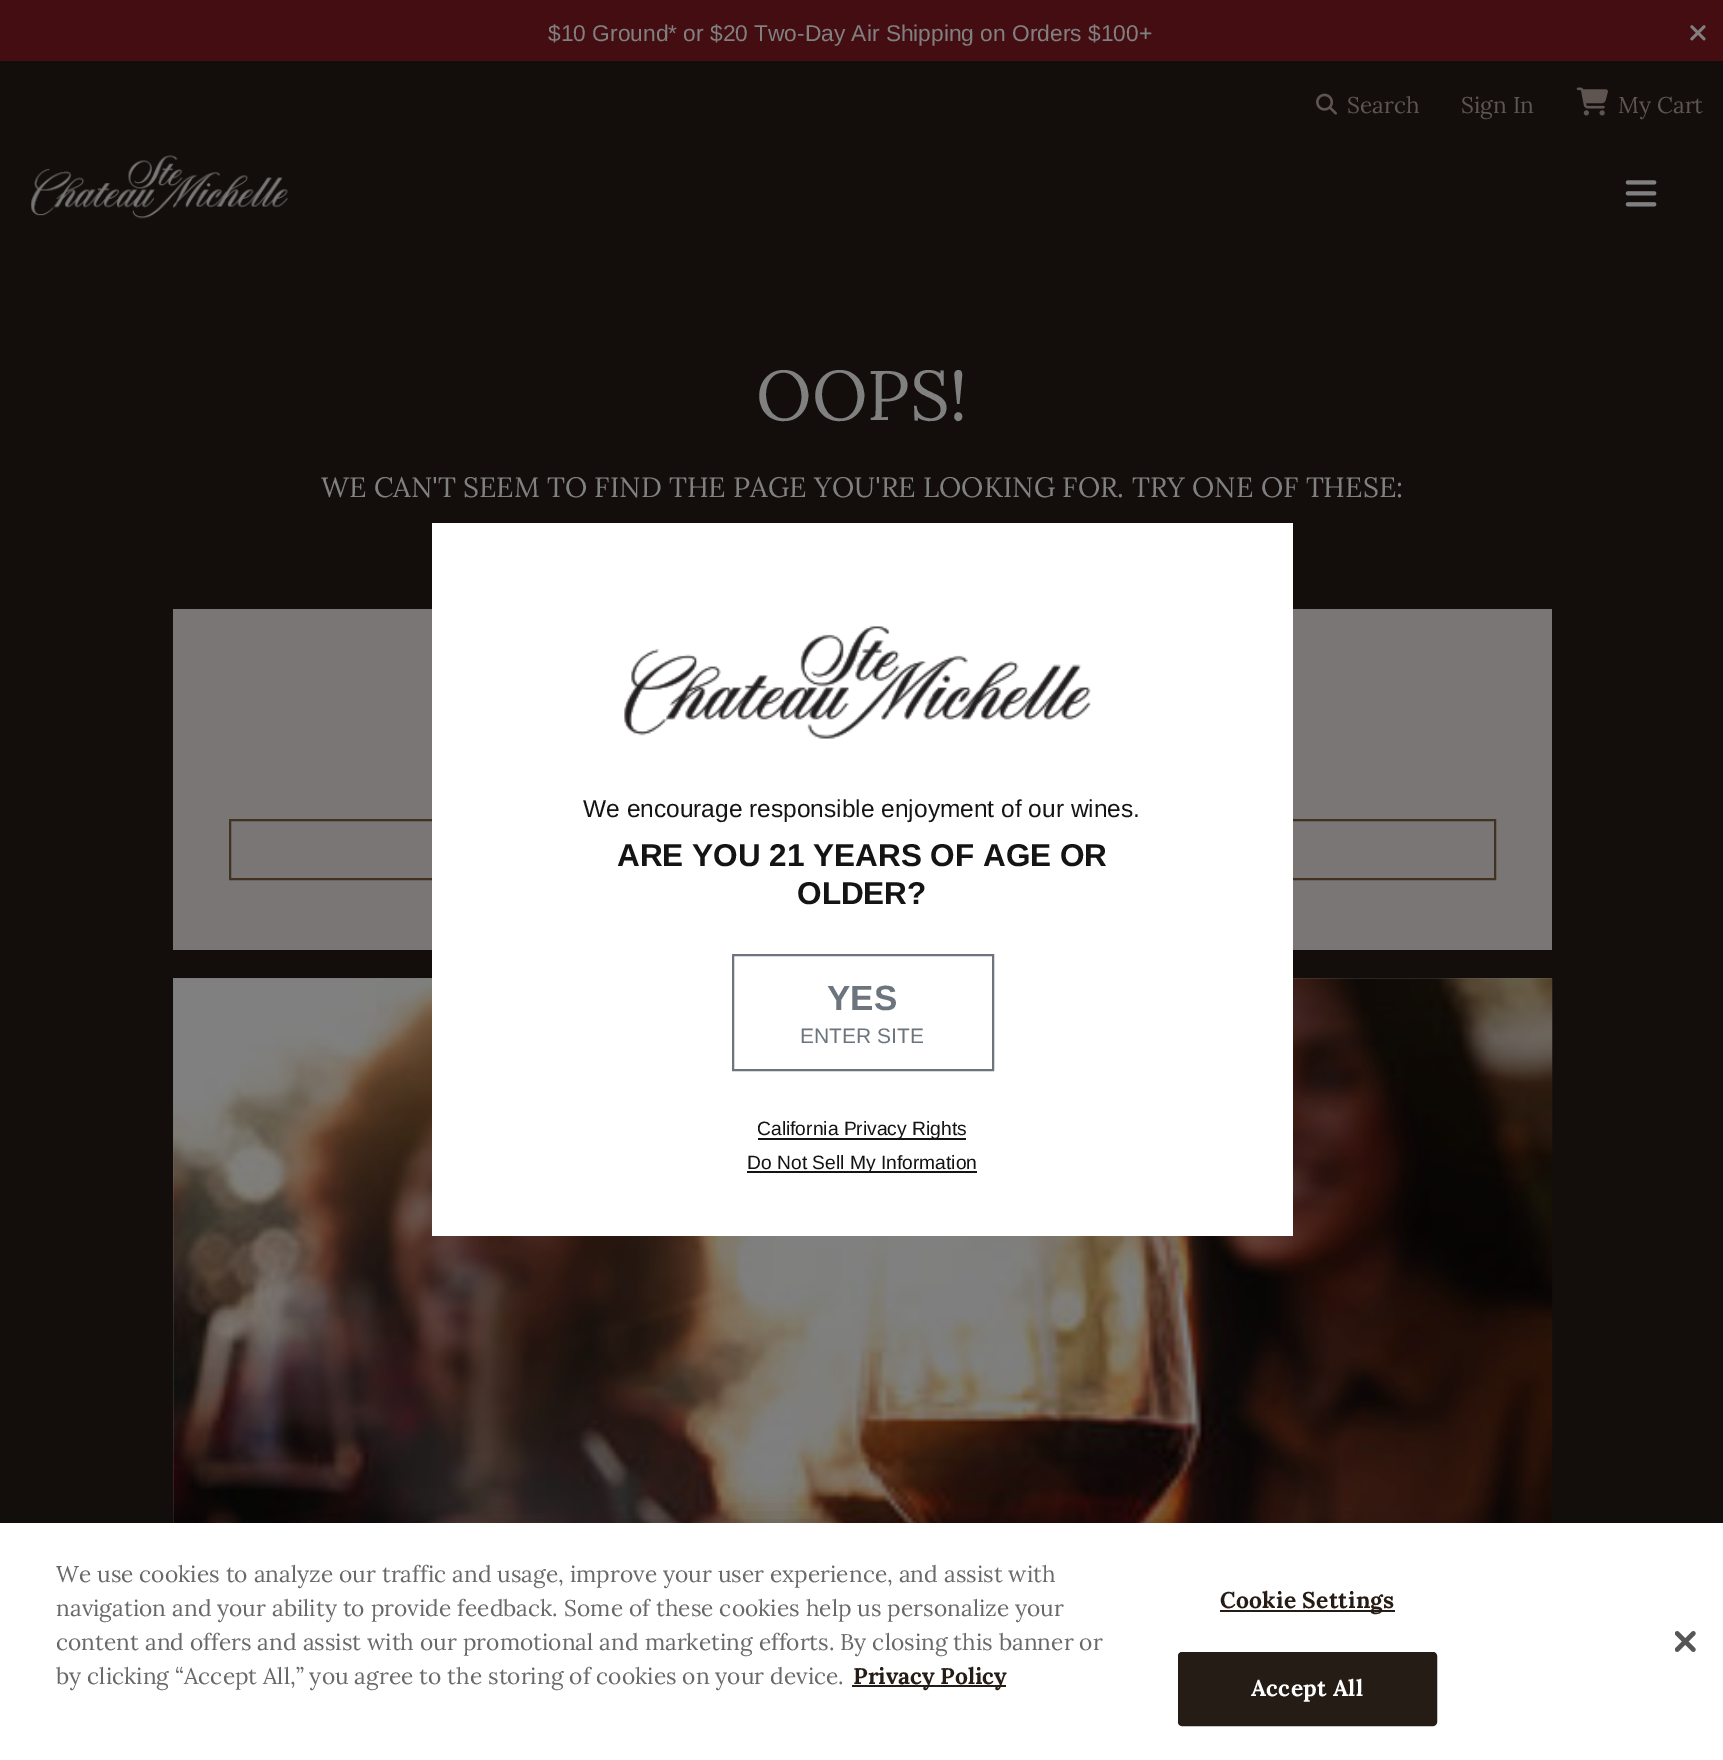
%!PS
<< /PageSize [1723 1760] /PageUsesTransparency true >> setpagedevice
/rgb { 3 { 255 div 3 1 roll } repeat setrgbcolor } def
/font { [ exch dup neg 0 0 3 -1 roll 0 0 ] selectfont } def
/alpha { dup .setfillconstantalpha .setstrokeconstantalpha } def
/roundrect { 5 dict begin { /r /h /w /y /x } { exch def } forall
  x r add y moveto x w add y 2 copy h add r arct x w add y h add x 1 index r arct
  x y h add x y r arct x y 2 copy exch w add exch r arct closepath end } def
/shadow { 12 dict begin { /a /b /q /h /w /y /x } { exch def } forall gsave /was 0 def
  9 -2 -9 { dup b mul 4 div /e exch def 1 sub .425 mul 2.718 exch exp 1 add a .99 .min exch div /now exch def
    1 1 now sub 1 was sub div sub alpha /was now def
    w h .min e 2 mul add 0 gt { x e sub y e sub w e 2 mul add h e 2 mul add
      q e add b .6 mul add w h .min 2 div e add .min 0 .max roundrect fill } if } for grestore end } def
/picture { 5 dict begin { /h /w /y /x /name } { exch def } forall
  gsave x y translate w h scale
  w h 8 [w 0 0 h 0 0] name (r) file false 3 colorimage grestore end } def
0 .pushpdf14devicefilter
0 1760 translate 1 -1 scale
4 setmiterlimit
19 14 11 rgb
0 0 1723 1760 rectfill
67 13 17 rgb
0 0 1723 61 rectfill
(img/1.rgb) 1690 25 16 16 picture
(img/2.rgb) 1316 93 21 22 picture
(img/3.rgb) 1576 87 32 29 picture
(img/4.rgb) 31 155 257 64 picture
(img/5.rgb) 1625 180 32 27 picture
121 118 117 rgb
173 609 1379 341 rectfill
65 49 32 rgb
2 setlinewidth
230 820 1265 59 rectstroke
121 118 117 rgb
173 978 1379 545 rectfill
(img/6.rgb) 173 978 1380 545 picture
255 255 255 rgb
432 523 861 713 rectfill
(img/7.rgb) 624 626 467 113 picture
108 117 125 rgb
733 955 260 115 rectstroke
20 20 20 rgb
758 1138 208 2 rectfill
747 1171 230 2 rectfill
0 0 0 rgb
0 1523 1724 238 0 16 0.2 shadow
[
  [0 1523 1723 237 255 255 255]
  [852 1685 154 2 37 28 21]
  [1220 1610 175 2 37 28 21]
] { aload pop rgb rectfill } forall
1179 1653 257 72 3 roundrect gsave fill grestore
stroke
(img/8.rgb) 1675 1631 21 21 picture
/LiberationSans-Regular 22.75 font
128 128 128 rgb
548 41 moveto ($10 Ground* or $20 Two-Day Air Shipping on Orders $100+) show
/Lora-Regular 22.75 font
94 84 81 rgb
[
  [(Search) 1347 113]
  [(Sign In) 1461 113]
  [(My Cart) 1618 113]
] { aload pop moveto show } forall
/Lora-Regular 70 font
128 128 128 rgb
756 420 moveto (OOPS!) show
/Lora-Regular 28 font
321 497 moveto (WE CAN'T SEEM TO FIND THE PAGE YOU'RE LOOKING FOR. TRY ONE OF THESE:) show
/LiberationSans-Regular 24.5 font
20 20 20 rgb
583 817 moveto (We encourage responsible enjoyment of our wines.) show
/LiberationSans-Bold 31.5 font
617 866 moveto (ARE YOU 21 YEARS OF AGE OR) show
797 904 moveto (OLDER?) show
/LiberationSans-Bold 35 font
108 117 125 rgb
827 1010 moveto (YES) show
/LiberationSans-Regular 21 font
800 1043 moveto (ENTER SITE) show
/LiberationSans-Regular 19.25 font
20 20 20 rgb
757 1135 moveto (California Privacy Rights) show
747 1169 moveto (Do Not Sell My Information) show
/Lora-Regular 22.75 font
105 105 105 rgb
[
  [(We use cookies to analyze our traffic and usage, improve your user experience, and assist with) 56 1582]
  [(navigation and your ability to provide feedback. Some of these cookies help us personalize your) 56 1616]
  [(content and offers and assist with our promotional and marketing efforts. By closing this banner or) 56 1650]
  [(by clicking “Accept All,” you agree to the storing of cookies on your device.) 56 1684]
] { aload pop moveto show } forall
/Lora-Bold 22.75 font
37 28 21 rgb
853 1684 moveto (Privacy Policy) show
1220 1608 moveto 0.25 0 (Cookie Settings) ashow
255 255 255 rgb
1251 1696 moveto 0.25 0 (Accept All) ashow
.poppdf14devicefilter showpage
